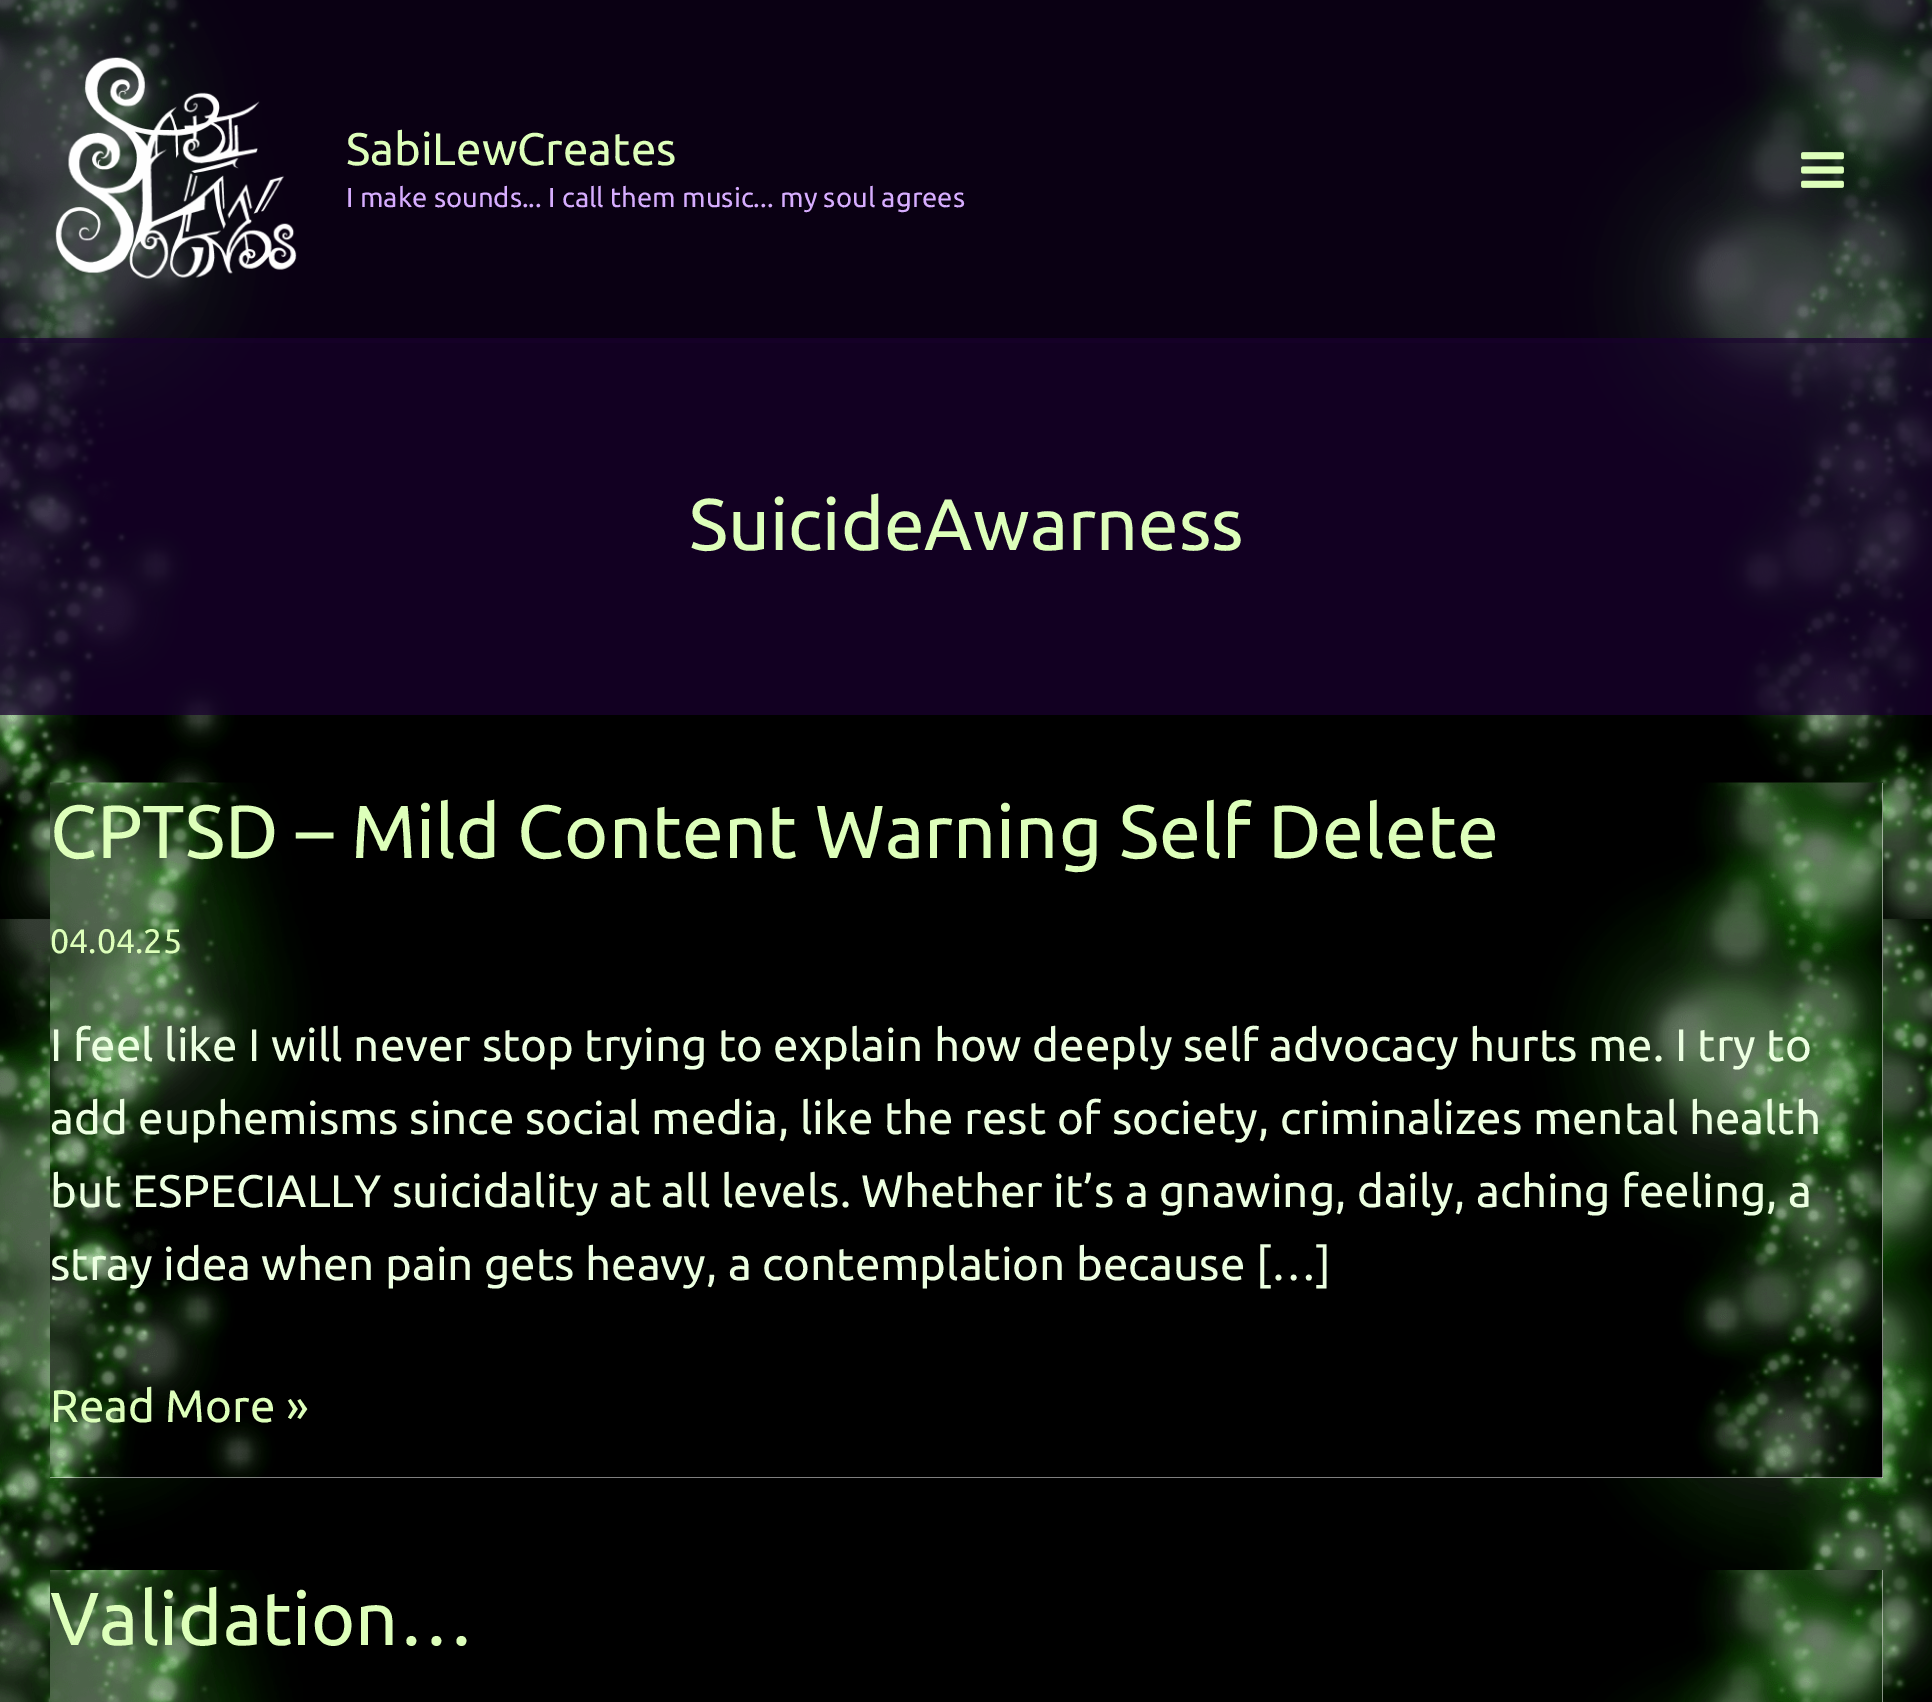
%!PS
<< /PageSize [1932 1702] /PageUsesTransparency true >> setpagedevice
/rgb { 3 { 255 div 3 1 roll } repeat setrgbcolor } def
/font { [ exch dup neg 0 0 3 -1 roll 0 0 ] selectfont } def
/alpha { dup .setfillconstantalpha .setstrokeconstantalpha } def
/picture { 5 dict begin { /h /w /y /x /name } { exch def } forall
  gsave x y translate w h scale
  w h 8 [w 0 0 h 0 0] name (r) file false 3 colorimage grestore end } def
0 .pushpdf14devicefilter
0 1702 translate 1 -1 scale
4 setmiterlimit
255 255 255 rgb
0 0 1932 1702 rectfill
(img/1.rgb) 0 0 1932 1702 picture
0.73 alpha
24 0 46 rgb
0 338 1932 377 rectfill
0.42 alpha
0 0 1932 343 rectfill
1 alpha
(img/2.rgb) 55 57 242 222 picture
(img/3.rgb) 1801 152 43 36 picture
255 255 255 rgb
50 783 1833 695 rectfill
(img/4.rgb) 50 782 1833 696 picture
1882 1570 1 132 rectfill
(img/5.rgb) 50 1570 1833 132 picture
/Ubuntu-Regular 45.6 font
221 255 186 rgb
346 165 moveto (SabiLewCreates) show
/Ubuntu-Regular 27.4 font
215 173 255 rgb
346 207 moveto (I make sounds... I call them music... my soul agrees) show
/Ubuntu-Regular 73 font
221 255 186 rgb
689 550 moveto (SuicideAwarness) show
/Ubuntu-Regular 75.25 font
50 858 moveto (CPTSD – Mild Content Warning Self Delete) show
/Ubuntu-Regular 34 font
50 953 moveto (04.04.25) show
/Ubuntu-Regular 45.6 font
236 255 225 rgb
[
  [(I feel like I will never stop trying to explain how deeply self advocacy hurts me. I try to) 50 1061]
  [(add euphemisms since social media, like the rest of society, criminalizes mental health) 50 1134]
  [(but ESPECIALLY suicidality at all levels. Whether it’s a gnawing, daily, aching feeling, a) 50 1207]
  [(stray idea when pain gets heavy, a contemplation because […]) 50 1280]
] { aload pop moveto show } forall
221 255 186 rgb
50 1422 moveto (Read More ») show
/Ubuntu-Regular 75.25 font
50 1645 moveto (Validation…) show
.poppdf14devicefilter showpage
